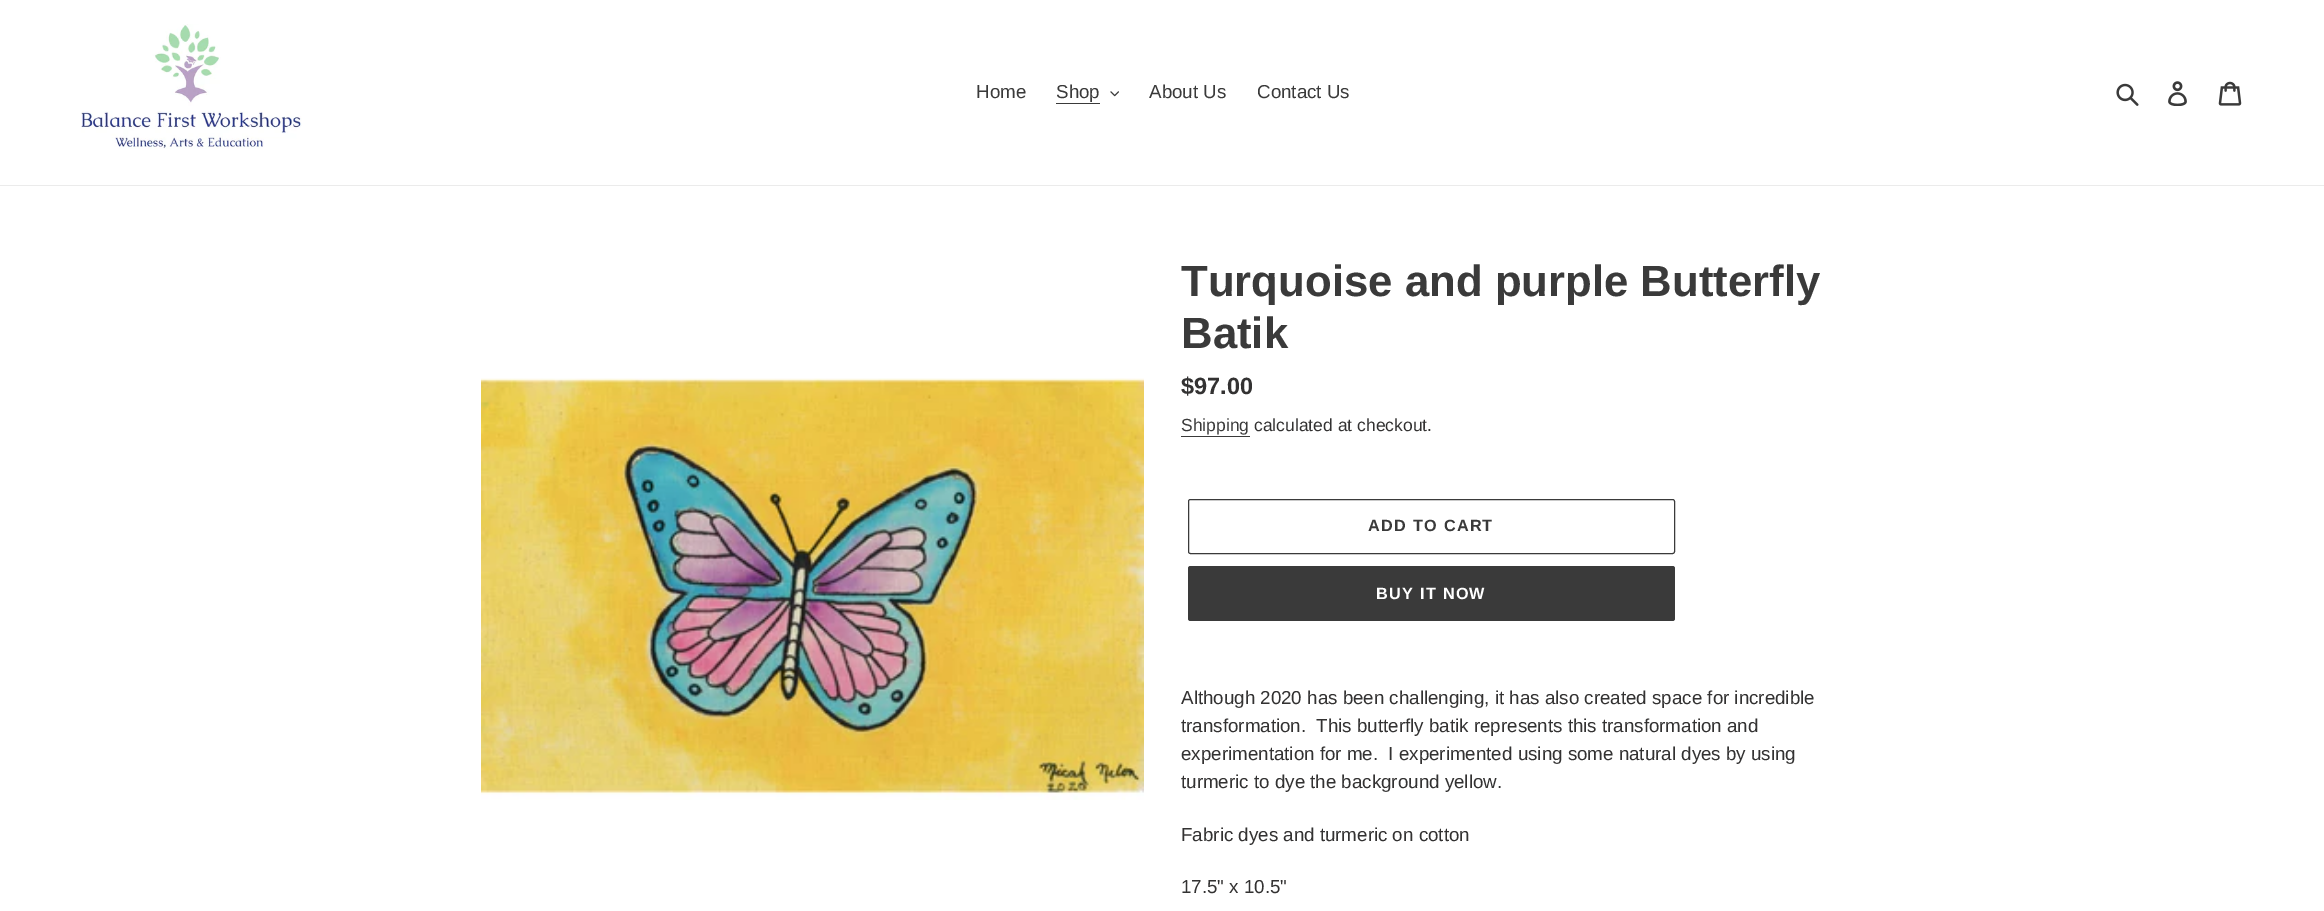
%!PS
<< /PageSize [2324 911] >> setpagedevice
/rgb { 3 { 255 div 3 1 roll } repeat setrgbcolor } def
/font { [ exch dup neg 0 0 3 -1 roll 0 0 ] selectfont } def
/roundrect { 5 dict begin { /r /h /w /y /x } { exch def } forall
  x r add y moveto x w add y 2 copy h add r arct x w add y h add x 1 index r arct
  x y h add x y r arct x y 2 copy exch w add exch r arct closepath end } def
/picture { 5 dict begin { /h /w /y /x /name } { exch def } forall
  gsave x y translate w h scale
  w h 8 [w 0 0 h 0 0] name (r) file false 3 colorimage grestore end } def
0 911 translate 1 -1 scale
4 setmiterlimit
255 255 255 rgb
0 0 2324 911 rectfill
235 235 235 rgb
0 185 2324 1 rectfill
(img/1.rgb) 81 24 221 125 picture
58 58 58 rgb
1056 103 44 1 rectfill
(img/2.rgb) 1110 91 9 6 picture
(img/3.rgb) 2116 83 23 23 picture
(img/4.rgb) 2168 81 19 25 picture
(img/5.rgb) 2218 81 24 25 picture
(img/6.rgb) 481 378 663 422 picture
1181 436 69 1 rectfill
1188.5 499.5 486 54 2 roundrect stroke
1188 566 487 55 2.5 roundrect fill
/LiberationSans-Regular 18.75 font
[
  [(Home) 976 98]
  [(Shop) 1056 98]
  [(About Us) 1149 98]
  [(Contact Us) 1257 98]
] { aload pop moveto show } forall
/LiberationSans-Bold 43.75 font
1181 296 moveto (Turquoise and purple Butterfly) show
1181 348 moveto (Batik) show
/LiberationSans-Bold 23.5 font
51 50 50 rgb
1181 394 moveto ($97.00) show
/LiberationSans-Regular 17.5 font
58 58 58 rgb
1181 431 moveto (Shipping) show
51 50 50 rgb
1254 431 moveto (calculated at checkout.) show
/LiberationSans-Bold 16.25 font
58 58 58 rgb
1368 531 moveto 1.25 0 (ADD TO CART) ashow
255 255 255 rgb
1376 599 moveto 1.25 0 (BUY IT NOW) ashow
/LiberationSans-Regular 18.75 font
51 50 50 rgb
[
  [(Although 2020 has been challenging, it has also created space for incredible) 1181 704]
  [(transformation.  This butterfly batik represents this transformation and) 1181 732]
  [(experimentation for me.  I experimented using some natural dyes by using) 1181 760]
  [(turmeric to dye the background yellow.) 1181 788]
  [(Fabric dyes and turmeric on cotton) 1181 841]
  [(17.5" x 10.5") 1181 893]
] { aload pop moveto show } forall
showpage
